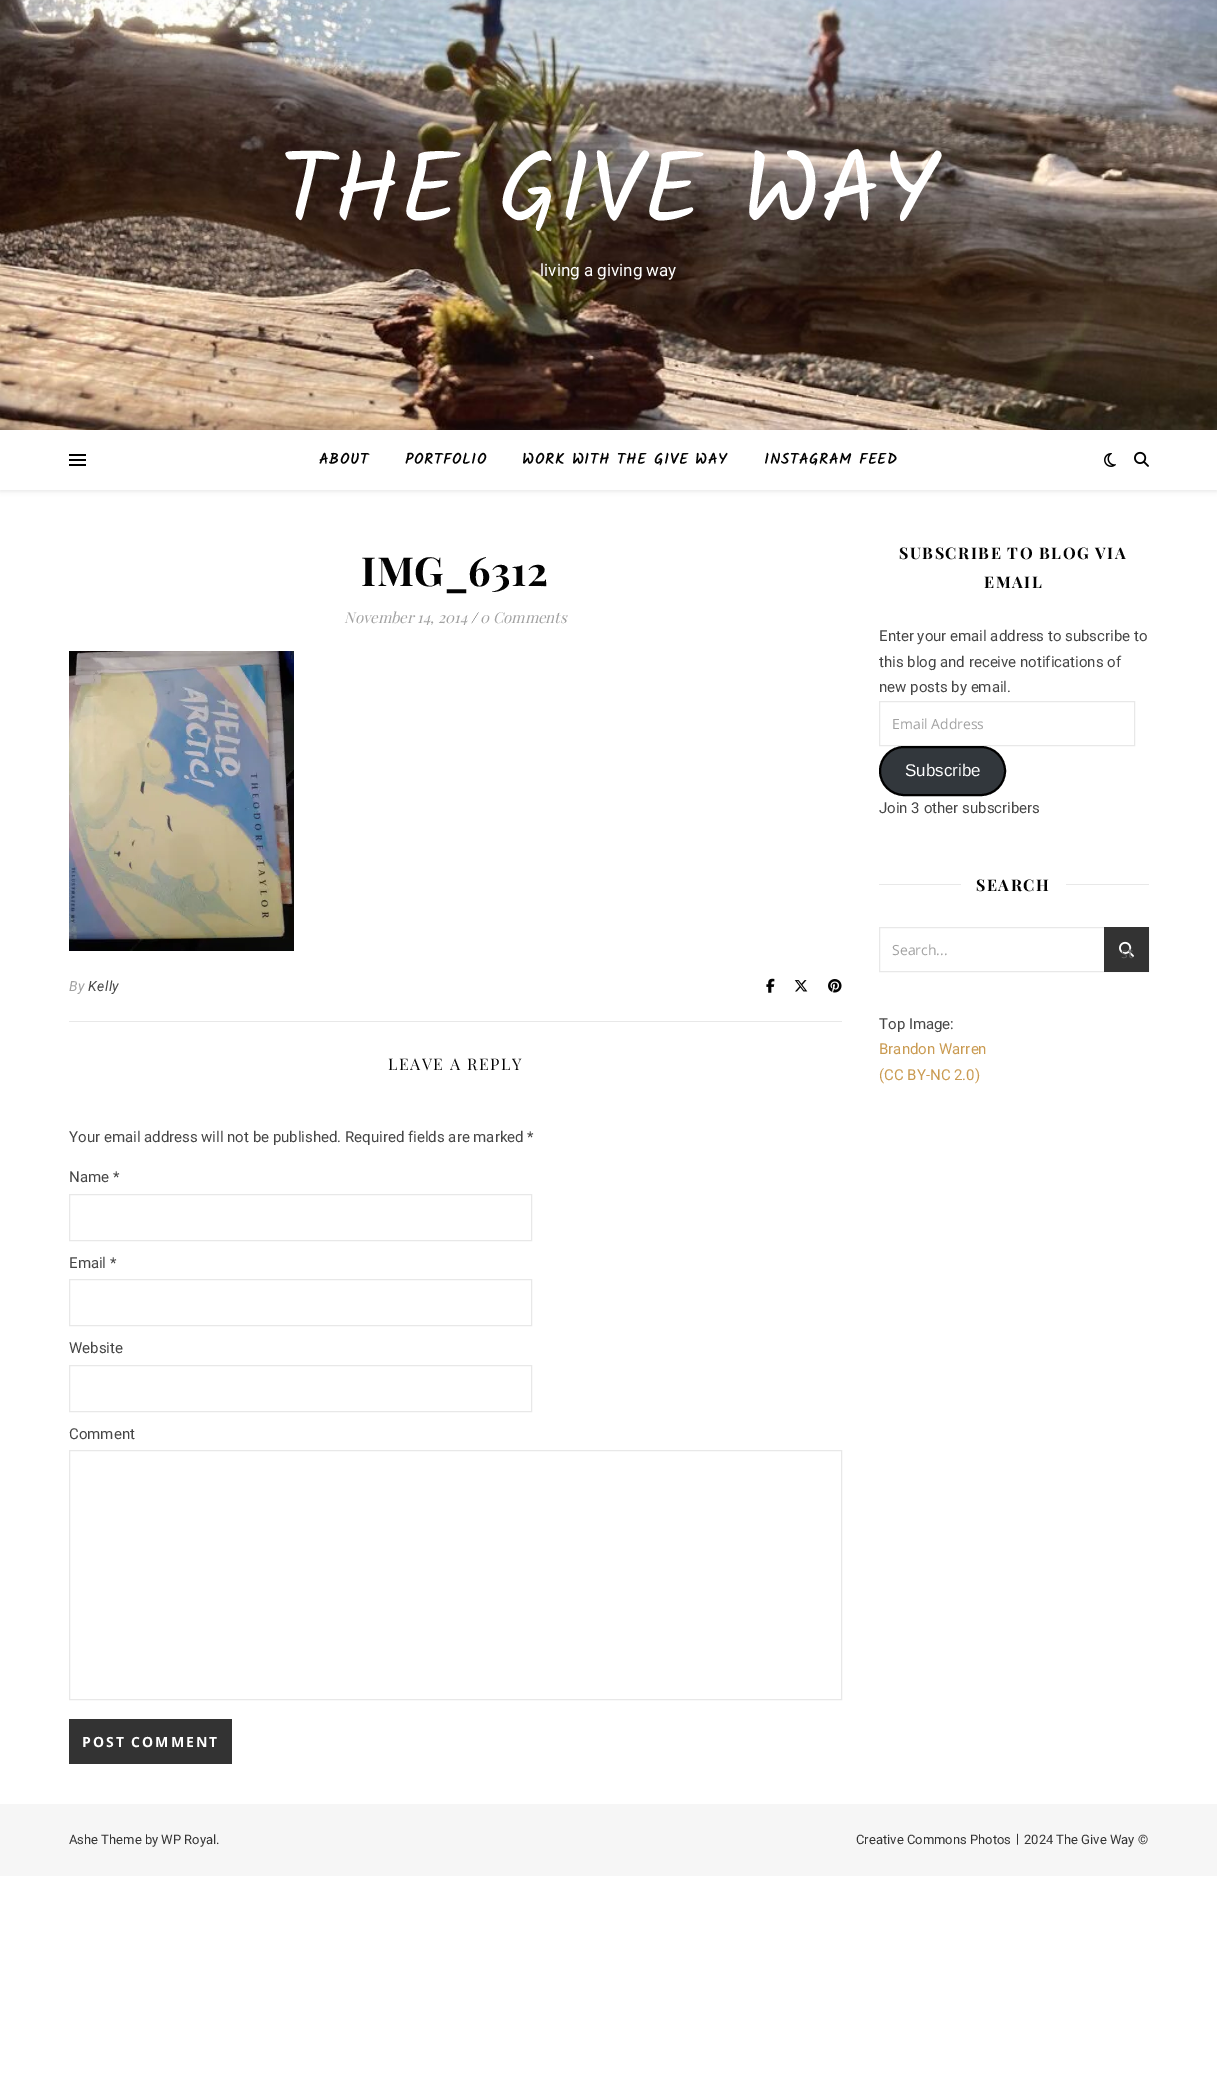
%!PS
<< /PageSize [1217 2092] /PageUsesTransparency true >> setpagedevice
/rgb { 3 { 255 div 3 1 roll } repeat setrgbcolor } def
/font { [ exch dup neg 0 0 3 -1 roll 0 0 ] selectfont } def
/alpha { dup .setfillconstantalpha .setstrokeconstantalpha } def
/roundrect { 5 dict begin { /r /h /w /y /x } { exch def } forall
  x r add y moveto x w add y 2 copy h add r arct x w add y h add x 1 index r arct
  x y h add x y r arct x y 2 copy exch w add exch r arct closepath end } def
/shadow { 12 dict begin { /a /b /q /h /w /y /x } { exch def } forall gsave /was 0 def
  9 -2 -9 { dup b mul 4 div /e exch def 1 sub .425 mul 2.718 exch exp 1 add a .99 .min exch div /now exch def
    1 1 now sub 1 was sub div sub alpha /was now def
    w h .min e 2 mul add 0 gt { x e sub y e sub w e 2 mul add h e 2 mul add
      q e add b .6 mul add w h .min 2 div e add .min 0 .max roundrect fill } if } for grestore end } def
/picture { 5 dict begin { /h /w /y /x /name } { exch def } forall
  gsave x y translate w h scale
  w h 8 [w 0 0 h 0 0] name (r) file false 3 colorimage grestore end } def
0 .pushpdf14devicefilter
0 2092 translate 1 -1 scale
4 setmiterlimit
255 255 255 rgb
0 0 1217 2092 rectfill
(img/1.rgb) 0 0 1217 430 picture
gsave
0 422 moveto 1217 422 lineto 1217 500 lineto 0 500 lineto closepath 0 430 moveto 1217 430 lineto 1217 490 lineto 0 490 lineto closepath eoclip newpath
0 0 0 rgb
0 431 1217 60 0 2.5 0.1 shadow
grestore
[
  [69 454 17 2 0 0 0]
  [69 459 17 2 0 0 0]
  [69 464 17 2 0 0 0]
] { aload pop rgb rectfill } forall
(img/2.rgb) 1104 453 12 14 picture
(img/3.rgb) 1134 451 15 16 picture
(img/4.rgb) 69 651 225 300 picture
232 232 232 rgb
69 1021 773 1 rectfill
(img/5.rgb) 766 978 9 15 picture
(img/6.rgb) 794 980 14 12 picture
(img/7.rgb) 828 979 14 14 picture
69.5 1194.5 462 46 rectstroke
69.5 1279.5 462 46 rectstroke
69.5 1365.5 462 46 rectstroke
69.5 1450.5 772 249 rectstroke
51 51 51 rgb
69 1719 163 45 rectfill
232 232 232 rgb
879.5 701.5 255 44 rectstroke
50 55 60 rgb
880 747 125 48 24 roundrect gsave fill grestore
0 0 0 rgb
2 setlinewidth
stroke
232 232 232 rgb
879 884 82 1 rectfill
1066 884 83 1 rectfill
1 setlinewidth
879.5 927.5 269 44 rectstroke
51 51 51 rgb
1104 927 45 45 rectfill
(img/8.rgb) 1119 941 15 16 picture
246 246 246 rgb
0 1804 1217 72 rectfill
/Kalam-Regular 100 font
255 255 255 rgb
279 222 moveto (THE GIVE WAY) show
/Roboto-Regular 17 font
540 276 moveto (living a giving way) show
/Kalam-Bold 15 font
3 3 3 rgb
319 464 moveto 1 0 (ABOUT) ashow
405 464 moveto 1 0 (PORTFOLIO) ashow
522 464 moveto 1 0 (WORK WITH THE GIVE WAY) ashow
764 464 moveto 1 0 (INSTAGRAM FEED) ashow
/PlayfairDisplay-Bold 40 font
361 586 moveto 0.5 0 (IMG_6312) ashow
/PlayfairDisplay-Italic 15 font
161 161 161 rgb
344 623 moveto (November 14, 2014) show
70 70 70 rgb
471 623 moveto (/) show
161 161 161 rgb
480 623 moveto (0 Comments) show
/Roboto-Italic 14 font
69 991 moveto 0.5 0 (By) ashow
70 70 70 rgb
88 991 moveto 0.5 0 (Kelly) ashow
/PlayfairDisplay-Regular 16 font
3 3 3 rgb
388 1070 moveto 1.5 0 (LEAVE A REPLY) ashow
/Roboto-Regular 15 font
70 70 70 rgb
[
  [(Your email address will not be published. Required fields are marked *) 69 1142]
  [(Name *) 69 1182]
  [(Email *) 69 1268]
  [(Website) 69 1353]
  [(Comment) 69 1439]
] { aload pop moveto show } forall
/OpenSans-Bold 14 font
255 255 255 rgb
82 1747 moveto 2 0 (POST COMMENT) ashow
/PlayfairDisplay-Bold 16 font
3 3 3 rgb
899 559 moveto 1.5 0 (SUBSCRIBE TO BLOG VIA) ashow
984 588 moveto 1.5 0 (EMAIL) ashow
/Roboto-Regular 15 font
70 70 70 rgb
[
  [(Enter your email address to subscribe to) 879 641]
  [(this blog and receive notifications of) 879 667]
  [(new posts by email.) 879 692]
] { aload pop moveto show } forall
/OpenSans-Regular 14 font
161 161 161 rgb
892 729 moveto (Email Address) show
/LiberationSans-Regular 17 font
255 255 255 rgb
905 776 moveto (Subscribe) show
/Roboto-Regular 15 font
70 70 70 rgb
879 813 moveto (Join 3 other subscribers) show
/PlayfairDisplay-Bold 16 font
3 3 3 rgb
976 891 moveto 1.5 0 (SEARCH) ashow
/OpenSans-Regular 14 font
161 161 161 rgb
892 955 moveto (Search...) show
99 99 99 rgb
1121 958 moveto (st) show
/Roboto-Regular 15 font
70 70 70 rgb
879 1029 moveto (Top Image:) show
202 155 82 rgb
879 1054 moveto (Brandon Warren) show
879 1080 moveto (\(CC BY-NC 2.0\)) show
/Roboto-Regular 13 font
51 51 51 rgb
[
  [(Ashe Theme by WP Royal.) 69 1844]
  [(Creative Commons Photos) 856 1844]
  [(|) 1016 1843]
  [(2024 The Give Way ©) 1024 1844]
] { aload pop moveto show } forall
.poppdf14devicefilter showpage
